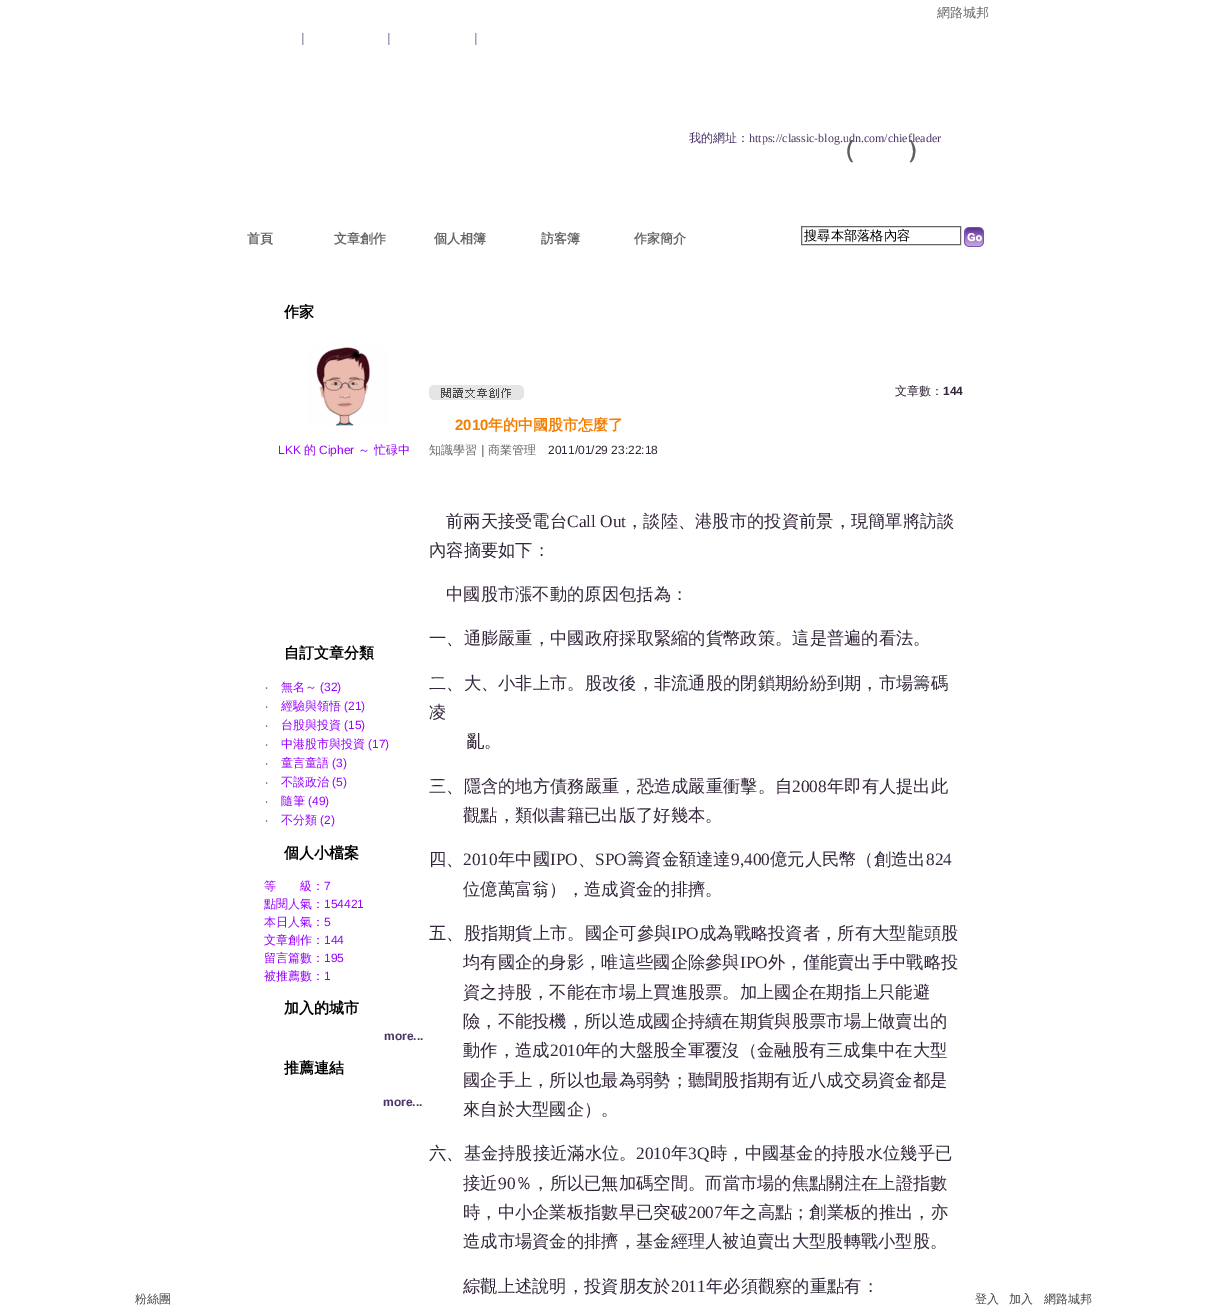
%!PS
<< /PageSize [1227 1314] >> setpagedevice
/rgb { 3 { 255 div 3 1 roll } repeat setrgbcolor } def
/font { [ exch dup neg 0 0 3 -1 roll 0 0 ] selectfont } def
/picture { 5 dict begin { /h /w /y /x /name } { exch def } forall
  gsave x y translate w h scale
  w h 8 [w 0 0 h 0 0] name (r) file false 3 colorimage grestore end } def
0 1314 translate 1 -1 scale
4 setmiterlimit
255 255 255 rgb
0 0 1227 1314 rectfill
102 102 102 rgb
801.5 226.5 159 18 rectstroke
(img/1.rgb) 964 227 20 20 picture
(img/2.rgb) 307 347 81 79 picture
(img/3.rgb) 429 385 95 15 picture
/WenQuanYiZenHei-Medium 13 font
937 17 moveto (網路城邦) show
/WenQuanYiZenHei-Medium 12 font
77 78 125 rgb
[
  [(｜) 297 42]
  [(｜) 383 42]
  [(｜) 470 42]
] { aload pop moveto show } forall
75 52 103 rgb
689 142 moveto (我的網址：) show
/WenQuanYiZenHei-Bold 25 font
96 96 96 rgb
831 158 moveto (（) show
906 158 moveto (）) show
/LiberationSerif-Regular 12 font
75 52 103 rgb
749 142 moveto (https://classic-blog.udn.com/chiefleader) show
/WenQuanYiZenHei-Bold 13 font
102 102 102 rgb
[
  [(首頁) 247 243]
  [(文章創作) 334 243]
  [(個人相簿) 434 243]
  [(訪客簿) 541 243]
  [(作家簡介) 634 243]
] { aload pop moveto show } forall
/WenQuanYiZenHei-Medium 13.25 font
0 0 0 rgb
804 240 moveto (搜尋本部落格內容) show
/WenQuanYiZenHei-Bold 15 font
284 317 moveto (作家) show
/LiberationSans-Regular 12 font
153 0 255 rgb
278 454 moveto (LKK) show
/WenQuanYiZenHei-Medium 12 font
304 454 moveto (的) show
/LiberationSans-Regular 12 font
319 454 moveto (Cipher) show
/WenQuanYiZenHei-Medium 12 font
358 454 moveto (～ 忙碌中) show
/WenQuanYiZenHei-Bold 15 font
0 0 0 rgb
284 658 moveto (自訂文章分類) show
/NotoSans-Regular 12 font
77 78 125 rgb
265 691 moveto (‧) show
/WenQuanYiZenHei-Medium 12 font
153 0 255 rgb
281 691 moveto (無名～) show
/LiberationSans-Regular 12 font
320 691 moveto (\(32\)) show
/NotoSans-Regular 12 font
77 78 125 rgb
265 710 moveto (‧) show
/WenQuanYiZenHei-Medium 12 font
153 0 255 rgb
281 710 moveto (經驗與領悟) show
/LiberationSans-Regular 12 font
344 710 moveto (\(21\)) show
/NotoSans-Regular 12 font
77 78 125 rgb
265 729 moveto (‧) show
/WenQuanYiZenHei-Medium 12 font
153 0 255 rgb
281 729 moveto (台股與投資) show
/LiberationSans-Regular 12 font
344 729 moveto (\(15\)) show
/NotoSans-Regular 12 font
77 78 125 rgb
265 748 moveto (‧) show
/WenQuanYiZenHei-Medium 12 font
153 0 255 rgb
281 748 moveto (中港股市與投資) show
/LiberationSans-Regular 12 font
368 748 moveto (\(17\)) show
/NotoSans-Regular 12 font
77 78 125 rgb
265 767 moveto (‧) show
/WenQuanYiZenHei-Medium 12 font
153 0 255 rgb
281 767 moveto (童言童語) show
/LiberationSans-Regular 12 font
332 767 moveto (\(3\)) show
/NotoSans-Regular 12 font
77 78 125 rgb
265 786 moveto (‧) show
/WenQuanYiZenHei-Medium 12 font
153 0 255 rgb
281 786 moveto (不談政治) show
/LiberationSans-Regular 12 font
332 786 moveto (\(5\)) show
/NotoSans-Regular 12 font
77 78 125 rgb
265 805 moveto (‧) show
/WenQuanYiZenHei-Medium 12 font
153 0 255 rgb
281 805 moveto (隨筆) show
/LiberationSans-Regular 12 font
308 805 moveto (\(49\)) show
/NotoSans-Regular 12 font
77 78 125 rgb
265 824 moveto (‧) show
/WenQuanYiZenHei-Medium 12 font
153 0 255 rgb
281 824 moveto (不分類) show
/LiberationSans-Regular 12 font
320 824 moveto (\(2\)) show
/WenQuanYiZenHei-Bold 15 font
0 0 0 rgb
284 858 moveto (個人小檔案) show
/WenQuanYiZenHei-Medium 12 font
153 0 255 rgb
264 890 moveto (等　　級：) show
/LiberationSans-Regular 12 font
324 890 moveto (7) show
/WenQuanYiZenHei-Medium 12 font
264 908 moveto (點閱人氣：) show
/LiberationSans-Regular 12 font
324 908 moveto (154421) show
/WenQuanYiZenHei-Medium 12 font
264 926 moveto (本日人氣：) show
/LiberationSans-Regular 12 font
324 926 moveto (5) show
/WenQuanYiZenHei-Medium 12 font
264 944 moveto (文章創作：) show
/LiberationSans-Regular 12 font
324 944 moveto (144) show
/WenQuanYiZenHei-Medium 12 font
264 962 moveto (留言篇數：) show
/LiberationSans-Regular 12 font
324 962 moveto (195) show
/WenQuanYiZenHei-Medium 12 font
264 980 moveto (被推薦數：) show
/LiberationSans-Regular 12 font
324 980 moveto (1) show
/WenQuanYiZenHei-Bold 15 font
0 0 0 rgb
284 1013 moveto (加入的城市) show
/LiberationSans-Bold 12 font
75 52 103 rgb
384 1040 moveto (more...) show
/WenQuanYiZenHei-Bold 15 font
0 0 0 rgb
284 1073 moveto (推薦連結) show
/LiberationSans-Bold 12 font
75 52 103 rgb
383 1106 moveto (more...) show
/WenQuanYiZenHei-Medium 12 font
51 37 58 rgb
895 395 moveto (文章數：) show
/LiberationSans-Bold 12 font
943 395 moveto (144) show
/LiberationSans-Bold 15 font
244 126 0 rgb
455 430 moveto (2010) show
/WenQuanYiZenHei-Bold 15 font
488 430 moveto (年的中國股市怎麼了) show
/WenQuanYiZenHei-Medium 12 font
102 102 102 rgb
429 454 moveto (知識學習) show
51 37 58 rgb
477 454 moveto (｜) show
102 102 102 rgb
488 454 moveto (商業管理) show
/LiberationSans-Regular 12 font
51 37 58 rgb
548 454 moveto (2011/01/29 23:22:18) show
/WenQuanYiZenHei-Medium 17.3 font
446 527 moveto (前兩天接受電台) show
/LiberationSerif-Regular 17.3 font
567 527 moveto (Call Out) show
/WenQuanYiZenHei-Medium 17.3 font
[
  [(，談陸、港股市的投資前景，現簡單將訪談) 626 527]
  [(內容摘要如下：) 429 556]
  [(中國股市漲不動的原因包括為：) 446 600]
  [(一、通膨嚴重，中國政府採取緊縮的貨幣政策。這是普遍的看法。) 429 644]
  [(二、大、小非上市。股改後，非流通股的閉鎖期紛紛到期，市場籌碼) 429 689]
  [(凌) 429 718]
  [(亂。) 467 747]
  [(三、隱含的地方債務嚴重，恐造成嚴重衝擊。自) 429 792]
] { aload pop moveto show } forall
/LiberationSerif-Regular 17.3 font
792 792 moveto (2008) show
/WenQuanYiZenHei-Medium 17.3 font
[
  [(年即有人提出此) 827 792]
  [(觀點，類似書籍已出版了好幾本。) 463 821]
  [(四、) 429 865]
] { aload pop moveto show } forall
/LiberationSerif-Regular 17.3 font
463 865 moveto (2010) show
/WenQuanYiZenHei-Medium 17.3 font
498 865 moveto (年中國) show
/LiberationSerif-Regular 17.3 font
550 865 moveto (IPO) show
/WenQuanYiZenHei-Medium 17.3 font
578 865 moveto (、) show
/LiberationSerif-Regular 17.3 font
595 865 moveto (SPO) show
/WenQuanYiZenHei-Medium 17.3 font
627 865 moveto (籌資金額達達) show
/LiberationSerif-Regular 17.3 font
731 865 moveto (9,400) show
/WenQuanYiZenHei-Medium 17.3 font
770 865 moveto (億元人民幣（創造出) show
/LiberationSerif-Regular 17.3 font
926 865 moveto (824) show
/WenQuanYiZenHei-Medium 17.3 font
463 895 moveto (位億萬富翁），造成資金的排擠。) show
429 939 moveto (五、股指期貨上市。國企可參與) show
/LiberationSerif-Regular 17.3 font
671 939 moveto (IPO) show
/WenQuanYiZenHei-Medium 17.3 font
699 939 moveto (成為戰略投資者，所有大型龍頭股) show
463 968 moveto (均有國企的身影，唯這些國企除參與) show
/LiberationSerif-Regular 17.3 font
740 968 moveto (IPO) show
/WenQuanYiZenHei-Medium 17.3 font
[
  [(外，僅能賣出手中戰略投) 768 968]
  [(資之持股，不能在市場上買進股票。加上國企在期指上只能避) 463 998]
  [(險，不能投機，所以造成國企持續在期貨與股票市場上做賣出的) 463 1027]
  [(動作，造成) 463 1056]
] { aload pop moveto show } forall
/LiberationSerif-Regular 17.3 font
550 1056 moveto (2010) show
/WenQuanYiZenHei-Medium 17.3 font
[
  [(年的大盤股全軍覆沒（金融股有三成集中在大型) 584 1056]
  [(國企手上，所以也最為弱勢；聽聞股指期有近八成交易資金都是) 463 1086]
  [(來自於大型國企）。) 463 1115]
  [(六、基金持股接近滿水位。) 429 1159]
] { aload pop moveto show } forall
/LiberationSerif-Regular 17.3 font
636 1159 moveto (2010) show
/WenQuanYiZenHei-Medium 17.3 font
671 1159 moveto (年) show
/LiberationSerif-Regular 17.3 font
688 1159 moveto (3Q) show
/WenQuanYiZenHei-Medium 17.3 font
710 1159 moveto (時，中國基金的持股水位幾乎已) show
463 1189 moveto (接近) show
/LiberationSerif-Regular 17.3 font
498 1189 moveto (90) show
/WenQuanYiZenHei-Medium 17.3 font
515 1189 moveto (％，所以已無加碼空間。而當市場的焦點關注在上證指數) show
463 1218 moveto (時，中小企業板指數早已突破) show
/LiberationSerif-Regular 17.3 font
688 1218 moveto (2007) show
/WenQuanYiZenHei-Medium 17.3 font
[
  [(年之高點；創業板的推出，亦) 723 1218]
  [(造成市場資金的排擠，基金經理人被迫賣出大型股轉戰小型股。) 463 1247]
  [(綜觀上述說明，投資朋友於) 463 1292]
] { aload pop moveto show } forall
/LiberationSerif-Regular 17.3 font
671 1292 moveto (2011) show
/WenQuanYiZenHei-Medium 17.3 font
706 1292 moveto (年必須觀察的重點有：) show
/WenQuanYiZenHei-Medium 12 font
68 68 68 rgb
[
  [(粉絲團) 135 1303]
  [(登入) 975 1303]
  [(加入) 1009 1303]
  [(網路城邦) 1044 1303]
] { aload pop moveto show } forall
showpage
